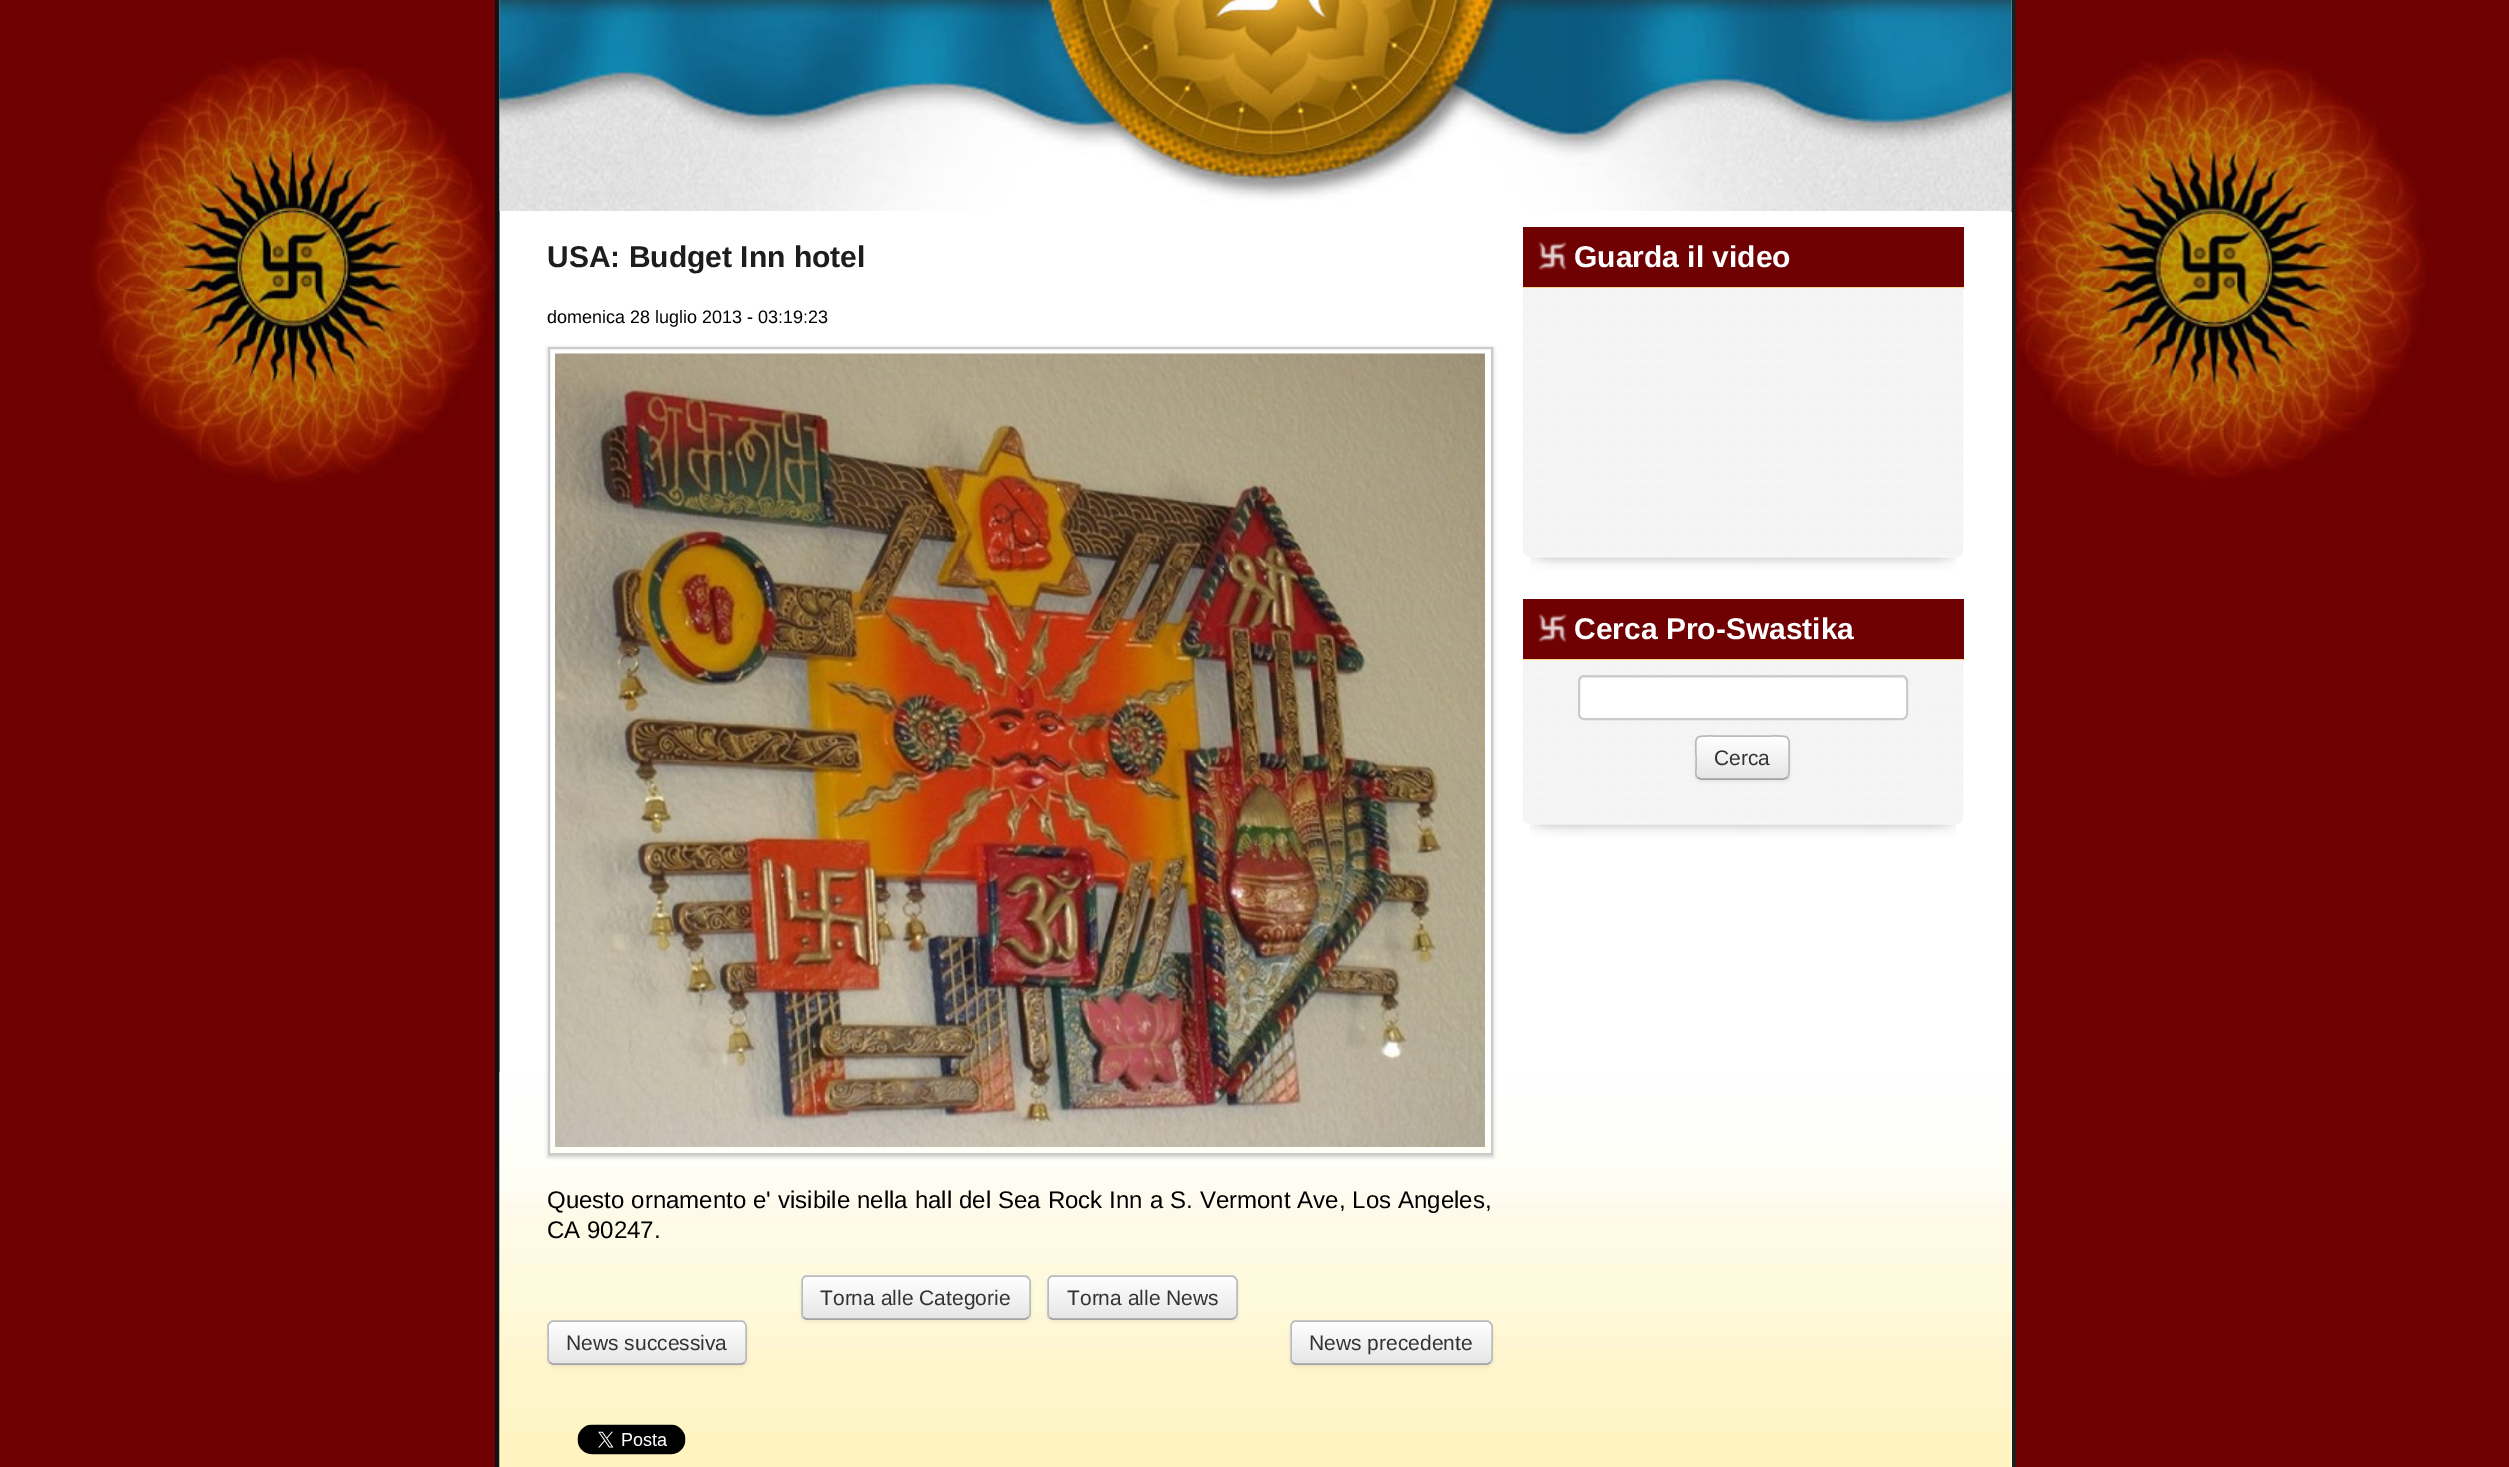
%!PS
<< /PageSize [2509 1467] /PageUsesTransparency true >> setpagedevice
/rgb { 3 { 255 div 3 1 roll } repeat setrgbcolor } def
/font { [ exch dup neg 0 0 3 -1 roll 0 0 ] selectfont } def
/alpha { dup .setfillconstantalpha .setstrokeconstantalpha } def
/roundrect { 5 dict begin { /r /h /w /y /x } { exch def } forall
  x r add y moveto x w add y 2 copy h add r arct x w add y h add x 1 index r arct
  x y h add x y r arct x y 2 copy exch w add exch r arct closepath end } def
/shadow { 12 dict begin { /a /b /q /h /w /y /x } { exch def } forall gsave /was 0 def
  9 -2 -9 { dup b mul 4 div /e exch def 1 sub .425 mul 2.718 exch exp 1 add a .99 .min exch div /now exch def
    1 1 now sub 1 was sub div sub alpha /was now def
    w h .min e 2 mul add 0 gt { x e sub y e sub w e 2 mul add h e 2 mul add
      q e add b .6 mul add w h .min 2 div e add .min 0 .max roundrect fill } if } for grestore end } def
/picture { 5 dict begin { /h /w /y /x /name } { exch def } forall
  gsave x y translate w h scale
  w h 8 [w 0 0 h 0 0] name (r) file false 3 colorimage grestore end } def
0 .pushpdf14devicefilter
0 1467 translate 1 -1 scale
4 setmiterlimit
111 1 2 rgb
0 0 2509 1467 rectfill
(img/1.rgb) 91 48 2335 435 picture
(img/2.rgb) 495 0 1521 1467 picture
(img/3.rgb) 499 0 1513 211 picture
255 255 255 rgb
2011 212 1 1255 rectfill
(img/4.rgb) 499 1072 1513 395 picture
gsave
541 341 moveto 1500 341 lineto 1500 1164 lineto 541 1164 lineto closepath 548 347 moveto 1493 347 lineto 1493 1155 lineto 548 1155 lineto closepath eoclip newpath
204 204 204 rgb
548 348 945 809 0 2 1 shadow
grestore
204 204 204 rgb
2 setlinewidth
549 348 943 806 rectstroke
(img/5.rgb) 555 353 930 794 picture
0 0 0 rgb
801 1277 230 45 6 1.5 0.05 shadow
245 245 245 rgb
801 1275 230 45 6 roundrect fill
gsave
801 1275 230 45 6 roundrect clip newpath
gsave 801 1277 moveto 1031 1277 lineto 1031 1319 lineto 801 1319 lineto closepath clip newpath
<< /ShadingType 2 /ColorSpace /DeviceRGB /Coords [916 1277 916 1319] /Extend [true true] /Function << /FunctionType 2 /Domain [0 1] /C0 [1 1 1] /C1 [0.902 0.902 0.902] /N 1 >> >> shfill grestore
grestore
162 162 162 rgb
1.5 setlinewidth
1028 1317.5 moveto 1027 1318.5 1026 1319 1024.5 1319 curveto 807 1319 lineto 805.5 1319 804.5 1318.5 803.5 1317.5 curveto stroke
187 187 187 rgb
803.5 1317.5 moveto 802.5 1316.5 802 1315.5 802 1314 curveto 802 1281 lineto 802 1279.5 802.5 1278.5 803.5 1277.5 curveto 804.5 1276.5 805.5 1276 807 1276 curveto 1024.5 1276 lineto 1026 1276 1027 1276.5 1028 1277.5 curveto 1029 1278.5 1030 1279.5 1030 1281 curveto 1030 1314 lineto 1030 1315.5 1029 1316.5 1028 1317.5 curveto stroke
0 0 0 rgb
1047 1277 191 45 6 1.5 0.05 shadow
245 245 245 rgb
1047 1275 191 45 6 roundrect fill
gsave
1047 1275 191 45 6 roundrect clip newpath
gsave 1047 1277 moveto 1238 1277 lineto 1238 1319 lineto 1047 1319 lineto closepath clip newpath
<< /ShadingType 2 /ColorSpace /DeviceRGB /Coords [1142 1277 1142 1319] /Extend [true true] /Function << /FunctionType 2 /Domain [0 1] /C0 [1 1 1] /C1 [0.902 0.902 0.902] /N 1 >> >> shfill grestore
grestore
162 162 162 rgb
1235 1317.5 moveto 1234 1318.5 1233 1319 1231.5 1319 curveto 1053 1319 lineto 1051.5 1319 1050.5 1318.5 1049.5 1317.5 curveto stroke
187 187 187 rgb
1049.5 1317.5 moveto 1048.5 1316.5 1048 1315.5 1048 1314 curveto 1048 1281 lineto 1048 1279.5 1048.5 1278.5 1049.5 1277.5 curveto 1050.5 1276.5 1051.5 1276 1053 1276 curveto 1231.5 1276 lineto 1233 1276 1234 1276.5 1235 1277.5 curveto 1236 1278.5 1237 1279.5 1237 1281 curveto 1237 1314 lineto 1237 1315.5 1236 1316.5 1235 1317.5 curveto stroke
0 0 0 rgb
548 1322 199 45 6 1.5 0.05 shadow
245 245 245 rgb
548 1320 199 45 6 roundrect fill
gsave
548 1320 199 45 6 roundrect clip newpath
gsave 548 1322 moveto 747 1322 lineto 747 1364 lineto 548 1364 lineto closepath clip newpath
<< /ShadingType 2 /ColorSpace /DeviceRGB /Coords [647 1322 647 1364] /Extend [true true] /Function << /FunctionType 2 /Domain [0 1] /C0 [1 1 1] /C1 [0.902 0.902 0.902] /N 1 >> >> shfill grestore
grestore
162 162 162 rgb
744.5 1362.5 moveto 743.5 1363.5 742.5 1364 741 1364 curveto 553.5 1364 lineto 552 1364 551 1363.5 550 1362.5 curveto stroke
187 187 187 rgb
550 1362.5 moveto 549 1361.5 548 1360.5 548 1359 curveto 548 1326 lineto 548 1324.5 549 1323.5 550 1322.5 curveto 551 1321.5 552 1321 553.5 1321 curveto 741 1321 lineto 742.5 1321 743.5 1321.5 744.5 1322.5 curveto 745.5 1323.5 746 1324.5 746 1326 curveto 746 1359 lineto 746 1360.5 745.5 1361.5 744.5 1362.5 curveto stroke
0 0 0 rgb
1290 1322 203 45 6 1.5 0.05 shadow
245 245 245 rgb
1290 1320 203 45 6 roundrect fill
gsave
1290 1320 203 45 6 roundrect clip newpath
gsave 1290 1322 moveto 1493 1322 lineto 1493 1364 lineto 1290 1364 lineto closepath clip newpath
<< /ShadingType 2 /ColorSpace /DeviceRGB /Coords [1391 1322 1391 1364] /Extend [true true] /Function << /FunctionType 2 /Domain [0 1] /C0 [1 1 1] /C1 [0.902 0.902 0.902] /N 1 >> >> shfill grestore
grestore
162 162 162 rgb
1490 1362.5 moveto 1489 1363.5 1488 1364 1486.5 1364 curveto 1296 1364 lineto 1294.5 1364 1293.5 1363.5 1292.5 1362.5 curveto stroke
187 187 187 rgb
1292.5 1362.5 moveto 1291.5 1361.5 1291 1360.5 1291 1359 curveto 1291 1326 lineto 1291 1324.5 1291.5 1323.5 1292.5 1322.5 curveto 1293.5 1321.5 1294.5 1321 1296 1321 curveto 1486.5 1321 lineto 1488 1321 1489 1321.5 1490 1322.5 curveto 1491 1323.5 1492 1324.5 1492 1326 curveto 1492 1359 lineto 1492 1360.5 1491 1361.5 1490 1362.5 curveto stroke
(img/6.rgb) 577 1424 109 31 picture
255 204 102 rgb
1523 287 441 2 rectfill
111 1 2 rgb
1523 227 441 60 rectfill
(img/7.rgb) 1538 241 29 29 picture
(img/8.rgb) 1523 287 441 270 picture
(img/9.rgb) 1530 557 426 13 picture
255 204 102 rgb
1523 659 441 2 rectfill
111 1 2 rgb
1523 599 441 60 rectfill
(img/7.rgb) 1538 613 29 29 picture
(img/10.rgb) 1523 659 441 165 picture
255 255 255 rgb
1578 675 330 45 6 roundrect fill
236 236 236 rgb
1584 678 moveto 1902 678 lineto 1904 678 1906 680 1906 682 curveto 1906 717 lineto 1907 716 1907 715 1907 714 curveto 1907 682 lineto 1907 679 1905 677 1902 677 curveto 1585 677 lineto 1582 677 1580 679 1580 682 curveto 1580 680 1582 678 1584 678 curveto closepath fill
204 204 204 rgb
2 setlinewidth
1579 676 328 43 5 roundrect stroke
0 0 0 rgb
1695 737 95 45 6 1.5 0.05 shadow
245 245 245 rgb
1695 735 95 45 6 roundrect fill
gsave
1695 735 95 45 6 roundrect clip newpath
gsave 1695 737 moveto 1790 737 lineto 1790 779 lineto 1695 779 lineto closepath clip newpath
<< /ShadingType 2 /ColorSpace /DeviceRGB /Coords [1742 737 1742 779] /Extend [true true] /Function << /FunctionType 2 /Domain [0 1] /C0 [1 1 1] /C1 [0.902 0.902 0.902] /N 1 >> >> shfill grestore
grestore
162 162 162 rgb
1.5 setlinewidth
1787 777.5 moveto 1784 779 lineto 1700.5 779 lineto 1697.5 777.5 lineto stroke
187 187 187 rgb
1697.5 777.5 moveto 1695 775.5 1696 771.5 1696 768.5 curveto 1696 757.5 lineto 1696 734.5 1692 736 1715 736 curveto 1770 736 lineto 1792.5 736 1789 734.5 1789 757.5 curveto 1789 768.5 lineto 1789 771.5 1789.5 775.5 1787 777.5 curveto stroke
(img/9.rgb) 1530 824 426 13 picture
/LiberationSans-Bold 30 font
30 29 29 rgb
547 267 moveto (USA: Budget Inn hotel) show
/LiberationSans-Regular 18 font
0 0 0 rgb
547 323 moveto (domenica 28 luglio 2013 - 03:19:23) show
/LiberationSans-Regular 24 font
547 1208 moveto 0.3 0 32 (Questo ornamento e' visibile nella hall del Sea Rock Inn a S. Vermont Ave, Los Angeles,) widthshow
547 1238 moveto (CA 90247.) show
/LiberationSans-Regular 21 font
51 51 51 rgb
[
  [(Torna alle Categorie) 820 1305]
  [(Torna alle News) 1067 1305]
  [(News successiva) 566 1350]
  [(News precedente) 1309 1350]
] { aload pop moveto show } forall
/LiberationSans-Bold 30 font
255 255 255 rgb
1574 267 moveto (Guarda il video) show
1574 639 moveto (Cerca Pro-Swastika) show
/LiberationSans-Regular 21 font
51 51 51 rgb
1714 765 moveto (Cerca) show
.poppdf14devicefilter showpage
